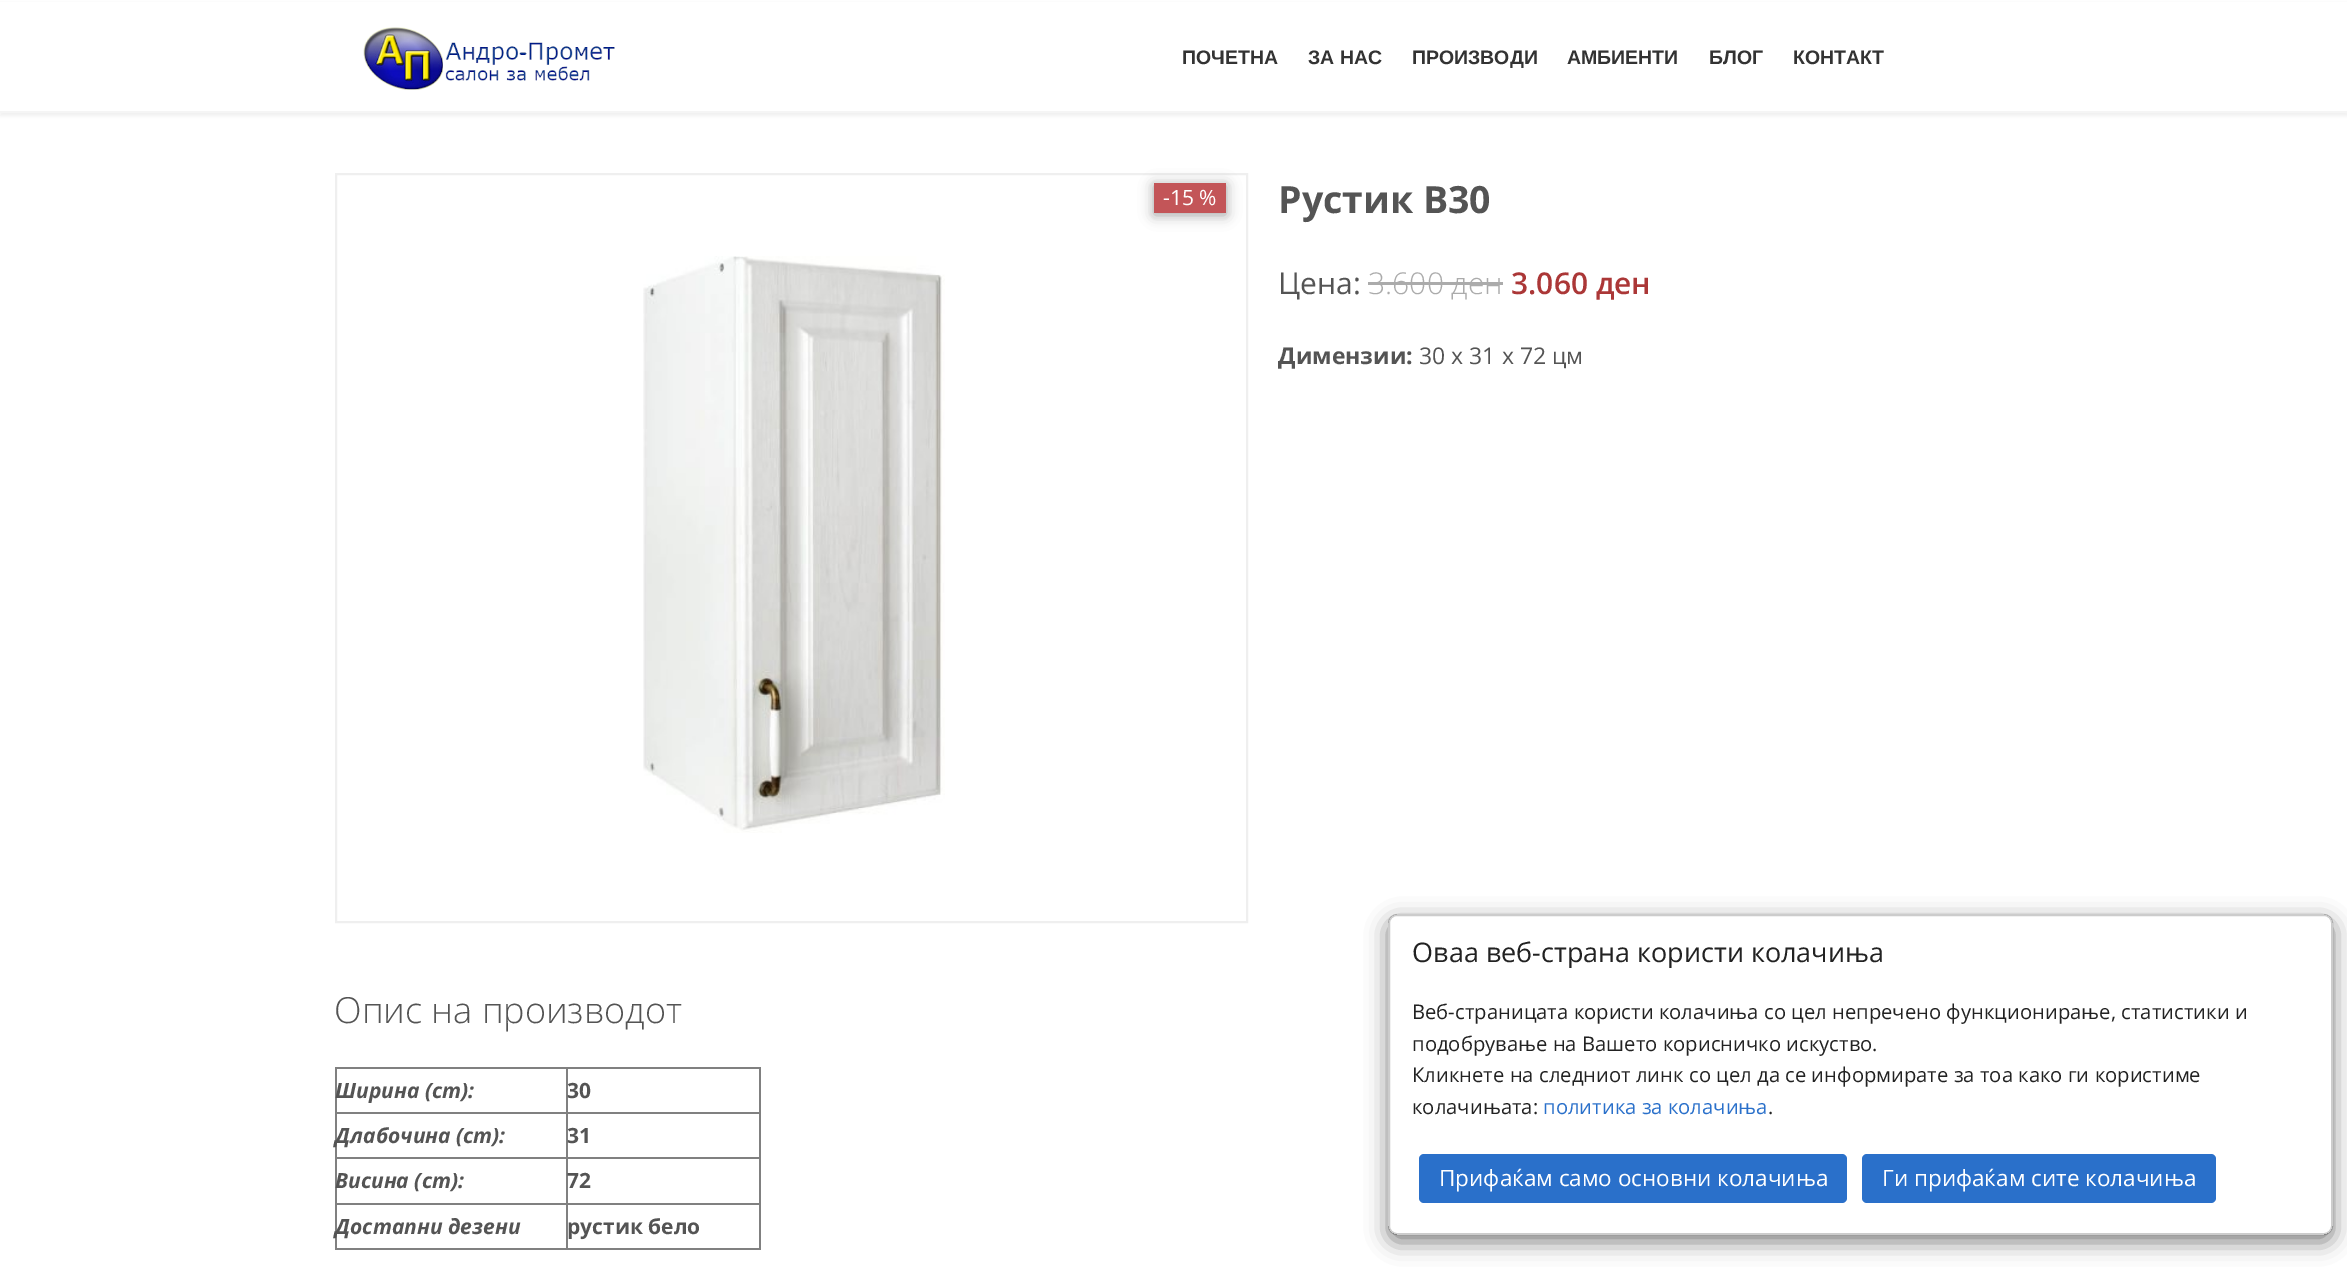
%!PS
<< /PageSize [2347 1279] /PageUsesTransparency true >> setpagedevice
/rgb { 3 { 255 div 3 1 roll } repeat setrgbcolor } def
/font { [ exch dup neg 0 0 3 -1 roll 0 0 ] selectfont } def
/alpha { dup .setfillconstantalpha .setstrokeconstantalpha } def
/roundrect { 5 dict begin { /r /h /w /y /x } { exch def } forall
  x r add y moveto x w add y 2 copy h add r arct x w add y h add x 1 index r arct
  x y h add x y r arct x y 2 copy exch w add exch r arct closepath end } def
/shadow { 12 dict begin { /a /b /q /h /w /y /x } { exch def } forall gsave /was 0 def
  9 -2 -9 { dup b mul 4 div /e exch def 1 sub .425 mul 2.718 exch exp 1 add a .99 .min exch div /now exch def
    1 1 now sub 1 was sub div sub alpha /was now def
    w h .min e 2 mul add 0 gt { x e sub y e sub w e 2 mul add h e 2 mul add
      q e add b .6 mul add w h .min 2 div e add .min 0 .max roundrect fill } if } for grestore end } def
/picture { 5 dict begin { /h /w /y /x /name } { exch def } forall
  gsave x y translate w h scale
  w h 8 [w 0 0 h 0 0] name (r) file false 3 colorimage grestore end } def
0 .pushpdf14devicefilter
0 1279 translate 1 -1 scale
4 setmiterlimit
255 255 255 rgb
0 0 2347 1279 rectfill
0 0 0 rgb
0 3 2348 113 0 1.5 0.05 shadow
255 255 255 rgb
0 2 2347 109 rectfill
245 245 245 rgb
0 111 2347 2 rectfill
(img/1.rgb) 363 27 252 63 picture
239 239 239 rgb
2 setlinewidth
336 174 911 748 rectstroke
(img/2.rgb) 643 256 302 577 picture
0 0 0 rgb
1154 185 72 30 0 7.5 0.19 shadow
1154 185 72 30 0 5 0.2 shadow
[
  [1154 183 72 30 195 85 88]
  [1368 282 135 3 171 171 171]
  [335 1067 426 2 128 128 128]
  [759 1067 2 183 128 128 128]
  [335 1248 426 2 128 128 128]
  [335 1067 2 183 128 128 128]
  [566 1112 195 2 128 128 128]
  [566 1157 195 2 128 128 128]
  [566 1203 195 2 128 128 128]
  [566 1203 2 47 128 128 128]
  [335 1203 232 2 128 128 128]
  [566 1157 2 48 128 128 128]
  [335 1157 232 2 128 128 128]
  [566 1112 2 46 128 128 128]
  [335 1112 232 2 128 128 128]
  [566 1067 2 46 128 128 128]
] { aload pop rgb rectfill } forall
gsave
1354 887 moveto 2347 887 lineto 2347 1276 lineto 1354 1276 lineto closepath 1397 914 moveto 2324 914 lineto 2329 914 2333 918 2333 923 curveto 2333 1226 lineto 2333 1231 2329 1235 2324 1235 curveto 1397 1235 lineto 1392 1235 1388 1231 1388 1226 curveto 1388 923 lineto 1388 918 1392 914 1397 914 curveto closepath eoclip newpath
0 0 0 rgb
1388 921 945 321 9 11 0.5 shadow
grestore
0.2 alpha
0 0 0 rgb
1389 915 943 319 8 roundrect stroke
1 alpha
42 112 202 rgb
1419 1154 428 49 5 roundrect fill
1862 1154 354 49 5 roundrect fill
/LiberationSans-Bold 19.5 font
51 51 51 rgb
[
  [(ПОЧЕТНА) 1182 64]
  [(ЗА НАС) 1308 64]
  [(ПРОИЗВОДИ) 1412 64]
  [(АМБИЕНТИ) 1567 64]
  [(БЛОГ) 1709 64]
  [(КОНТАКТ) 1793 64]
] { aload pop moveto show } forall
/OpenSans-Regular 21 font
255 255 255 rgb
1163 205 moveto (-15 %) show
/OpenSans-Bold 37.5 font
84 84 84 rgb
1278 213 moveto (Рустик В30) show
/OpenSans-Regular 30 font
1278 294 moveto (Цена:) show
/OpenSans-Light 30 font
171 171 171 rgb
1368 294 moveto (3.600 ден) show
/OpenSans-SemiBold 30 font
171 55 55 rgb
1511 294 moveto (3.060 ден) show
/OpenSans-Bold 23 font
84 84 84 rgb
1278 364 moveto (Димензии:) show
/OpenSans-Regular 23 font
1419 364 moveto (30 х 31 х 72 цм) show
/OpenSans-Light 36 font
334 1023 moveto (Опис на производот) show
/OpenSans-BoldItalic 21 font
335 1098 moveto (Ширина \(cm\):) show
/OpenSans-Bold 21 font
567 1098 moveto (30) show
/OpenSans-BoldItalic 21 font
335 1143 moveto (Длабочина \(cm\):) show
/OpenSans-Bold 21 font
567 1143 moveto (31) show
/OpenSans-BoldItalic 21 font
335 1188 moveto (Висина \(cm\):) show
/OpenSans-Bold 21 font
567 1188 moveto (72) show
/OpenSans-BoldItalic 21 font
335 1234 moveto (Достапни дезени) show
/OpenSans-Bold 21 font
567 1234 moveto (рустик бело) show
gsave
1412 938 897 30 rectclip
/OpenSans-Regular 27 font
34 34 34 rgb
1412 962 moveto (Оваа веб-страна користи колачиња) show
grestore
/OpenSans-Regular 20.25 font
34 34 34 rgb
[
  [(Веб-страницата користи колачиња со цел непречено функционирање, статистики и) 1412 1019]
  [(подобрување на Вашето корисничко искуство.) 1412 1051]
  [(Кликнете на следниот линк со цел да се информирате за тоа како ги користиме) 1412 1082]
  [(колачињата:) 1412 1114]
] { aload pop moveto show } forall
42 112 202 rgb
1543 1114 moveto (политика за колачиња) show
34 34 34 rgb
1768 1114 moveto (.) show
/OpenSans-Regular 22.5 font
255 255 255 rgb
1439 1186 moveto (Прифаќам само основни колачиња) show
1882 1186 moveto (Ги прифаќам сите колачиња) show
.poppdf14devicefilter showpage
